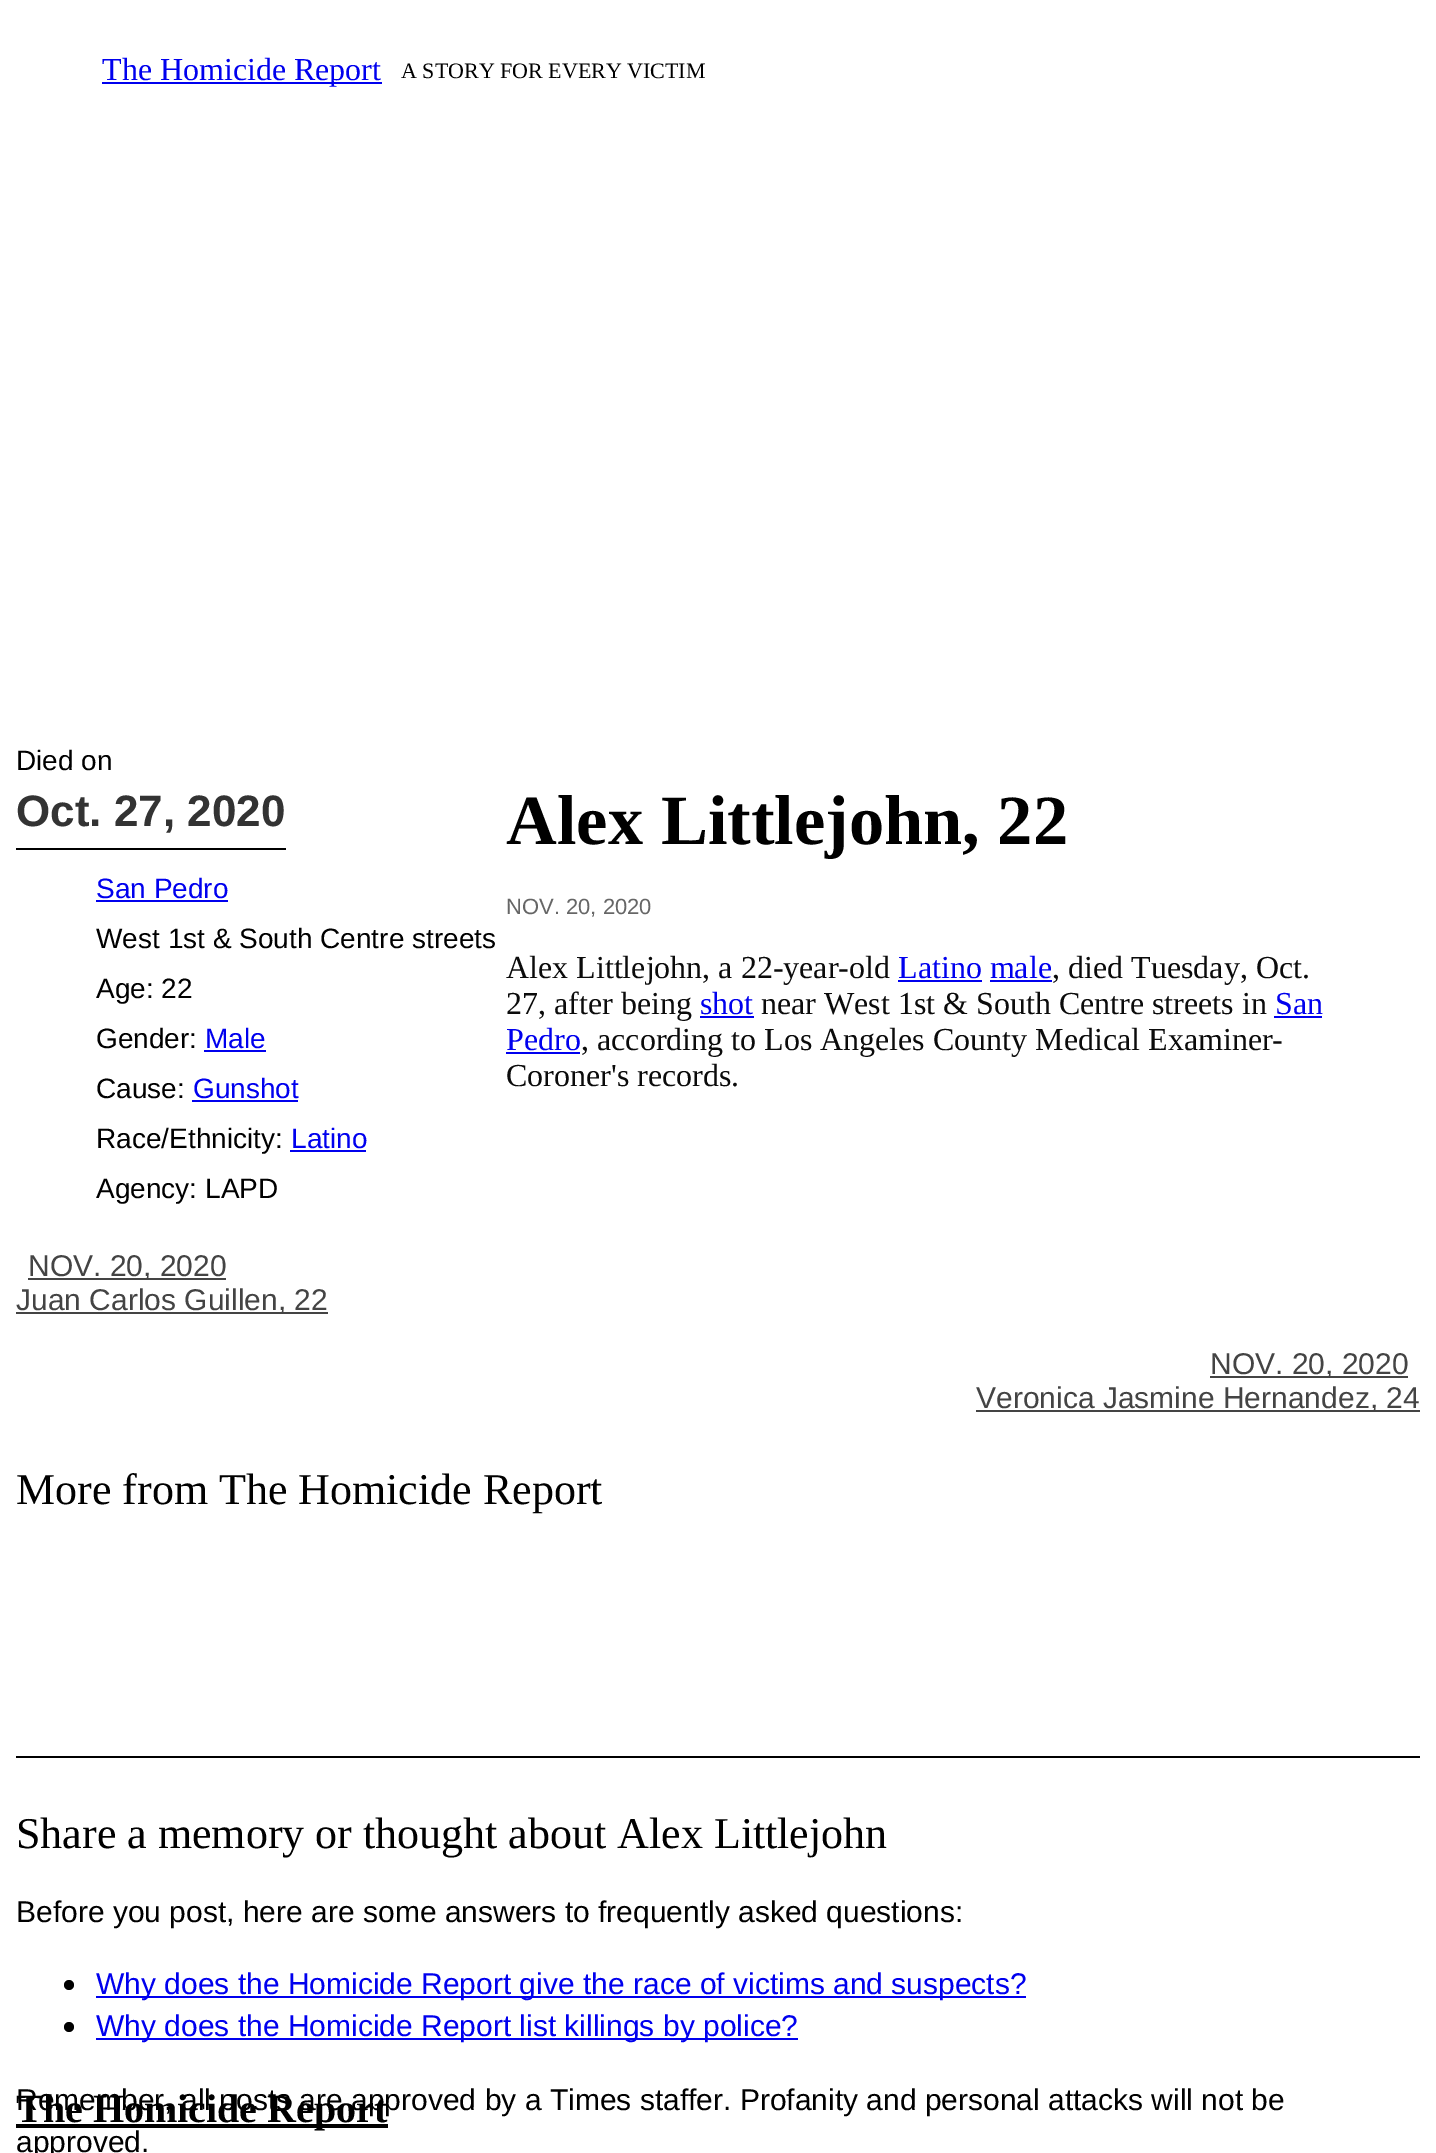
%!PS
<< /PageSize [1436 2153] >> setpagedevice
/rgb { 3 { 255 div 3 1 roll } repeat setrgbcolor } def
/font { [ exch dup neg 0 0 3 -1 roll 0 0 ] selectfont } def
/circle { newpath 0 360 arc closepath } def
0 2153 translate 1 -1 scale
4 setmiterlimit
255 255 255 rgb
0 0 1436 2153 rectfill
[
  [102 82 280 2 0 0 238]
  [16 848 270 2 0 0 0]
  [96 900 132 2 0 0 238]
  [204 1050 62 2 0 0 238]
  [192 1100 106 2 0 0 238]
  [290 1150 76 2 0 0 238]
  [898 980 84 2 0 0 238]
  [990 980 62 2 0 0 238]
  [700 1016 54 2 0 0 238]
  [1274 1016 48 2 0 0 238]
  [506 1052 74 2 0 0 238]
  [28 1278 198 2 68 68 68]
  [16 1312 312 2 68 68 68]
  [1210 1376 198 2 68 68 68]
  [976 1410 444 2 68 68 68]
  [16 1756 1404 2 0 0 0]
] { aload pop rgb rectfill } forall
69 1985 5 circle fill
0 0 238 rgb
96 1996 930 2 rectfill
0 0 0 rgb
69 2027 5 circle fill
0 0 238 rgb
96 2038 702 2 rectfill
0 0 0 rgb
16 2124 372 4 rectfill
/LiberationSerif-Regular 32 font
0 0 238 rgb
102 80 moveto (The Homicide Report) show
/LiberationSerif-Regular 22 font
0 0 0 rgb
401 78 moveto (A STORY FOR EVERY VICTIM) show
/LiberationSans-Regular 28 font
16 770 moveto (Died on) show
/LiberationSans-Bold 44 font
51 51 51 rgb
16 826 moveto (Oct. 27, 2020) show
/LiberationSans-Regular 28 font
0 0 238 rgb
96 898 moveto (San Pedro) show
0 0 0 rgb
[
  [(West 1st & South Centre streets) 96 948]
  [(Age: 22) 96 998]
  [(Gender:) 96 1048]
] { aload pop moveto show } forall
0 0 238 rgb
205 1048 moveto (Male) show
0 0 0 rgb
96 1098 moveto (Cause:) show
0 0 238 rgb
193 1098 moveto (Gunshot) show
0 0 0 rgb
96 1148 moveto (Race/Ethnicity:) show
0 0 238 rgb
291 1148 moveto (Latino) show
0 0 0 rgb
96 1198 moveto (Agency: LAPD) show
/LiberationSerif-Bold 70.5 font
506 844 moveto (Alex Littlejohn, 22) show
/LiberationSans-Regular 22 font
102 102 102 rgb
506 914 moveto (NOV. 20, 2020) show
/LiberationSerif-Regular 32 font
11 11 11 rgb
506 978 moveto (Alex Littlejohn, a 22-year-old) show
0 0 238 rgb
898 978 moveto (Latino male) show
11 11 11 rgb
1052 978 moveto (, died Tuesday, Oct.) show
506 1014 moveto (27, after being) show
0 0 238 rgb
700 1014 moveto (shot) show
11 11 11 rgb
761 1014 moveto (near West 1st & South Centre streets in) show
0 0 238 rgb
1275 1014 moveto (San) show
506 1050 moveto (Pedro) show
11 11 11 rgb
581 1050 moveto (, according to Los Angeles County Medical Examiner-) show
506 1086 moveto (Coroner's records.) show
/LiberationSans-Regular 30 font
68 68 68 rgb
[
  [(NOV. 20, 2020) 28 1276]
  [(Juan Carlos Guillen, 22) 16 1310]
  [(NOV. 20, 2020) 1210 1374]
  [(Veronica Jasmine Hernandez, 24) 976 1408]
] { aload pop moveto show } forall
/LiberationSerif-Regular 44 font
0 0 0 rgb
16 1504 moveto (More from The Homicide Report) show
16 1848 moveto (Share a memory or thought about Alex Littlejohn) show
/LiberationSans-Regular 30 font
16 1922 moveto (Before you post, here are some answers to frequently asked questions:) show
0 0 238 rgb
96 1994 moveto (Why does the Homicide Report give the race of victims and suspects?) show
96 2036 moveto (Why does the Homicide Report list killings by police?) show
0 0 0 rgb
16 2110 moveto (Remember, all posts are approved by a Times staffer. Profanity and personal attacks will not be) show
16 2152 moveto (approved.) show
/LiberationSerif-Bold 40 font
16 2122 moveto (The Homicide Report) show
showpage
